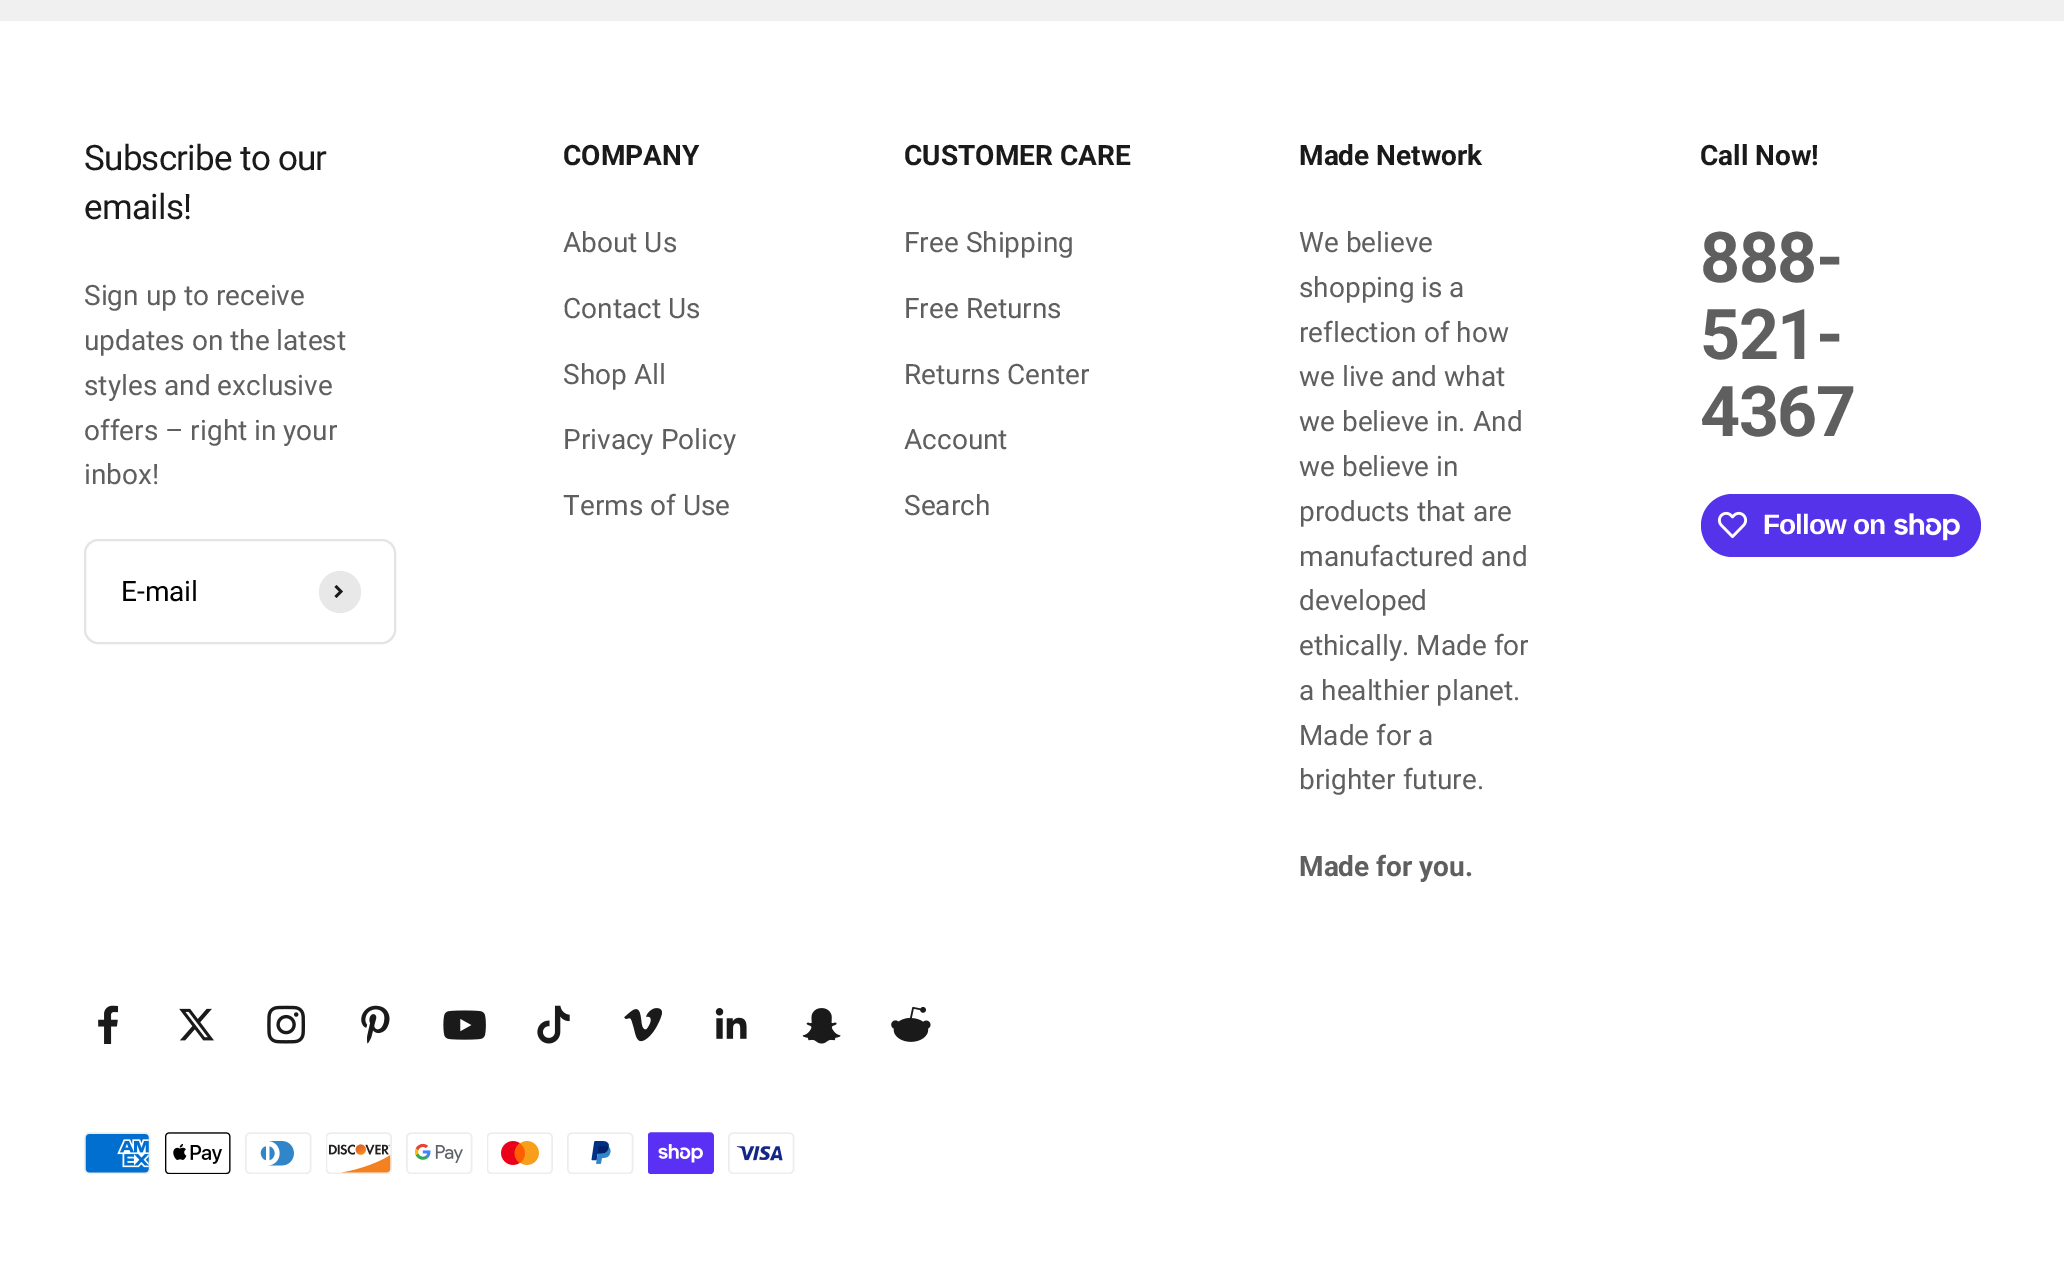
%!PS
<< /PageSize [2064 1285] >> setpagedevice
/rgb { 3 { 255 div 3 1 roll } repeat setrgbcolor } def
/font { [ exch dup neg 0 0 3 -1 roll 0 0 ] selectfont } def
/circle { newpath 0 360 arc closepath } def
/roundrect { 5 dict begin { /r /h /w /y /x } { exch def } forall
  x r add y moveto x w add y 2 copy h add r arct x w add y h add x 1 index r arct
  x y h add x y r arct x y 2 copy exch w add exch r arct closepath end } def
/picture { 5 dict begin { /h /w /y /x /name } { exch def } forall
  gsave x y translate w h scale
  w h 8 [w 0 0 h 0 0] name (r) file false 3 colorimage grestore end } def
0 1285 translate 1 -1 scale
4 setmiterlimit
240 240 240 rgb
0 0 2064 1285 rectfill
255 255 255 rgb
0 21 2064 1264 rectfill
228 228 228 rgb
2 setlinewidth
85 540 310 103 13 roundrect stroke
232 232 232 rgb
340 592 21 circle fill
26 26 26 rgb
2.6 setlinewidth
335.5 597 moveto 341 591.5 lineto 335.5 586 lineto stroke
84 51 235 rgb
1701 494 280 63 31.5 roundrect fill
(img/1.rgb) 1717 511 31 28 picture
(img/2.rgb) 1894 513 66 28 picture
(img/3.rgb) 98 1005 21 39 picture
(img/4.rgb) 179 1008 35 33 picture
(img/5.rgb) 267 1005 38 39 picture
(img/6.rgb) 361 1005 29 39 picture
(img/7.rgb) 443 1010 43 30 picture
(img/8.rgb) 537 1005 33 39 picture
(img/9.rgb) 624 1008 38 34 picture
(img/10.rgb) 715 1008 32 31 picture
(img/11.rgb) 802 1008 39 36 picture
(img/12.rgb) 891 1006 40 36 picture
(img/13.rgb) 84 1132 67 42 picture
(img/14.rgb) 165 1132 66 42 picture
(img/15.rgb) 245 1132 67 42 picture
(img/16.rgb) 326 1132 66 42 picture
(img/17.rgb) 406 1132 67 42 picture
(img/18.rgb) 487 1132 66 42 picture
(img/19.rgb) 567 1132 67 42 picture
(img/20.rgb) 648 1132 66 42 picture
(img/21.rgb) 728 1132 67 42 picture
/Roboto-Regular 35 font
26 26 26 rgb
84 170 moveto -0.75 0 (Subscribe to our) ashow
84 219 moveto -0.75 0 (emails!) ashow
/Roboto-Regular 28 font
95 95 95 rgb
[
  [(Sign up to receive) 84 305]
  [(updates on the latest) 84 350]
  [(styles and exclusive) 84 395]
  [(offers – right in your) 84 440]
  [(inbox!) 84 484]
] { aload pop moveto show } forall
0 0 0 rgb
121 601 moveto (E-mail) show
/Roboto-Bold 28 font
26 26 26 rgb
563 165 moveto (COMPANY) show
/Roboto-Regular 28 font
95 95 95 rgb
[
  [(About Us) 563 252]
  [(Contact Us) 563 318]
  [(Shop All) 563 384]
  [(Privacy Policy) 563 449]
  [(Terms of Use) 563 515]
] { aload pop moveto show } forall
/Roboto-Bold 28 font
26 26 26 rgb
904 165 moveto (CUSTOMER CARE) show
/Roboto-Regular 28 font
95 95 95 rgb
[
  [(Free Shipping) 904 252]
  [(Free Returns) 904 318]
  [(Returns Center) 904 384]
  [(Account) 904 449]
  [(Search) 904 515]
] { aload pop moveto show } forall
/Roboto-Bold 28 font
26 26 26 rgb
1299 165 moveto (Made Network) show
/Roboto-Regular 28 font
95 95 95 rgb
[
  [(We believe) 1299 252]
  [(shopping is a) 1299 297]
  [(reflection of how) 1299 342]
  [(we live and what) 1299 386]
  [(we believe in. And) 1299 431]
  [(we believe in) 1299 476]
  [(products that are) 1299 521]
  [(manufactured and) 1299 566]
  [(developed) 1299 610]
  [(ethically. Made for) 1299 655]
  [(a healthier planet.) 1299 700]
  [(Made for a) 1299 745]
  [(brighter future.) 1299 789]
] { aload pop moveto show } forall
/Roboto-Bold 28 font
1299 876 moveto (Made for you.) show
26 26 26 rgb
1700 165 moveto (Call Now!) show
/Roboto-Bold 70 font
95 95 95 rgb
1700 282 moveto -1.5 0 (888-) ashow
1700 359 moveto -1.5 0 (521-) ashow
1700 436 moveto -1.5 0 (4367) ashow
/LiberationSans-Bold 28 font
255 255 255 rgb
1763 534 moveto -0.9 0 (Follow on) ashow
showpage
